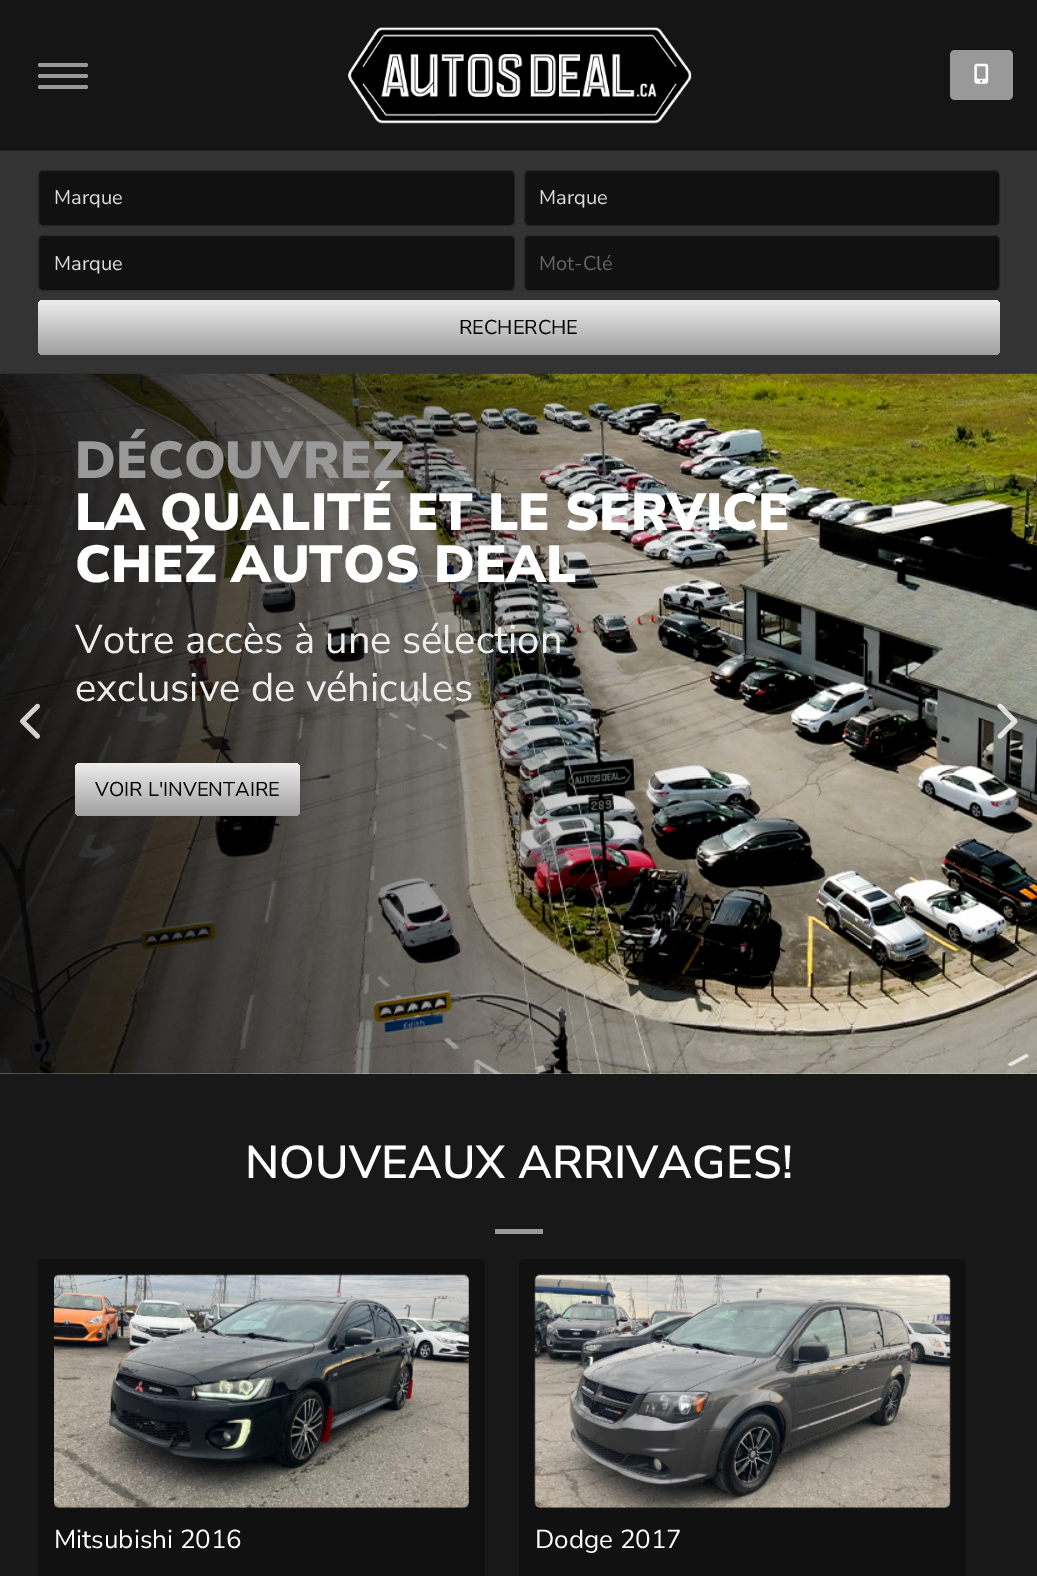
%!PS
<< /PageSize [1037 1576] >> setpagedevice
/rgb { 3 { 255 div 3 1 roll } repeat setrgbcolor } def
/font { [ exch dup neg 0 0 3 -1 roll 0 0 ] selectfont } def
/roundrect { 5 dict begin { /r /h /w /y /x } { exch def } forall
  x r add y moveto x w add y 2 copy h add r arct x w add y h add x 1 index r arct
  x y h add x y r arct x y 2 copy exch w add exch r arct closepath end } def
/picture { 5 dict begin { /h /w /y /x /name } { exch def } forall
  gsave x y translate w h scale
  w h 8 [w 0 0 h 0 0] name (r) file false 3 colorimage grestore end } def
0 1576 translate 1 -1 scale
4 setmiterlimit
255 255 255 rgb
0 0 1037 1576 rectfill
21 21 21 rgb
0 0 1037 150 rectfill
37 37 37 rgb
0 150 1037 1 rectfill
153 153 153 rgb
38 63 50 4 2 roundrect fill
38 74 50 4 2 roundrect fill
38 85 50 4 2 roundrect fill
(img/1.rgb) 348 27 344 97 picture
950 50 63 50 5 roundrect fill
(img/2.rgb) 974 63 15 21 picture
51 51 51 rgb
0 151 1037 223 rectfill
17 17 17 rgb
38.5 170.5 476 55 4.5 roundrect gsave fill grestore
37 37 37 rgb
stroke
17 17 17 rgb
524.5 170.5 475 55 4.5 roundrect gsave fill grestore
37 37 37 rgb
stroke
17 17 17 rgb
38.5 235.5 476 55 4.5 roundrect gsave fill grestore
37 37 37 rgb
stroke
17 17 17 rgb
524.5 235.5 475 55 4.5 roundrect gsave fill grestore
37 37 37 rgb
stroke
gsave 38 300 962 55 5 roundrect clip newpath
<< /ShadingType 2 /ColorSpace /DeviceRGB /Coords [519 300 519 355] /Extend [true true] /Function << /FunctionType 2 /Domain [0 1] /C0 [0.929 0.929 0.929] /C1 [0.624 0.624 0.624] /N 1 >> >> shfill grestore
(img/3.rgb) 0 373 1037 701 picture
(img/4.rgb) 20 703 20 36 picture
gsave 75 763 225 53 5 roundrect clip newpath
<< /ShadingType 2 /ColorSpace /DeviceRGB /Coords [188 763 188 816] /Extend [true true] /Function << /FunctionType 2 /Domain [0 1] /C0 [0.929 0.929 0.929] /C1 [0.624 0.624 0.624] /N 1 >> >> shfill grestore
(img/5.rgb) 997 703 21 36 picture
24 24 24 rgb
0 1074 1037 502 rectfill
153 153 153 rgb
495 1229 48 5 rectfill
17 17 17 rgb
38 1259 447 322 5 roundrect fill
(img/6.rgb) 54 1274 416 234 picture
519 1259 447 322 5 roundrect fill
(img/7.rgb) 534 1274 417 234 picture
/NunitoSans-Regular 20 font
221 221 221 rgb
[
  [(Marque) 54 204]
  [(Marque) 539 204]
  [(Marque) 54 270]
] { aload pop moveto show } forall
102 102 102 rgb
539 270 moveto (Mot-Clé) show
0 0 0 rgb
459 334 moveto (RECHERCHE) show
/NunitoSans-Black 52 font
153 153 153 rgb
75 478 moveto (DÉCOUVREZ) show
255 255 255 rgb
75 530 moveto (LA QUALITÉ ET LE SERVICE) show
75 582 moveto (CHEZ AUTOS DEAL) show
/NunitoSans-Regular 40 font
237 237 237 rgb
75 653 moveto (Votre accès à une sélection) show
75 701 moveto (exclusive de véhicules) show
/NunitoSans-Regular 20 font
0 0 0 rgb
95 796 moveto (VOIR L'INVENTAIRE) show
/NunitoSans-SemiBold 46 font
255 255 255 rgb
245 1178 moveto (NOUVEAUX ARRIVAGES!) show
/NunitoSans-Regular 26 font
54 1548 moveto (Mitsubishi 2016) show
535 1548 moveto (Dodge 2017) show
showpage
